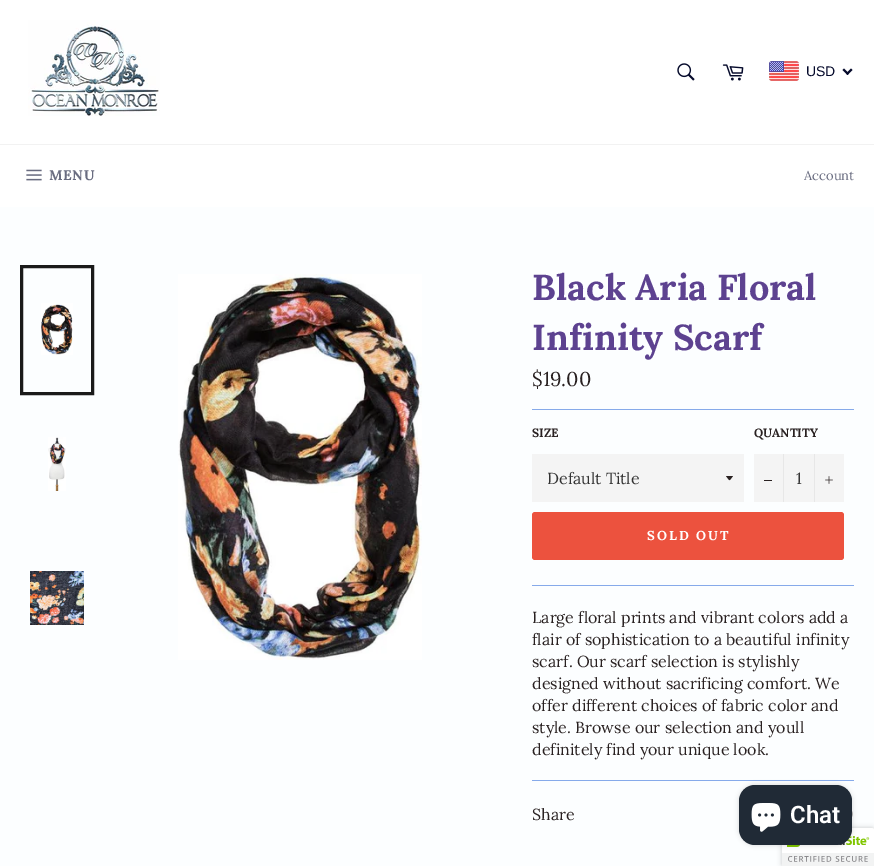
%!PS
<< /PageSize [874 866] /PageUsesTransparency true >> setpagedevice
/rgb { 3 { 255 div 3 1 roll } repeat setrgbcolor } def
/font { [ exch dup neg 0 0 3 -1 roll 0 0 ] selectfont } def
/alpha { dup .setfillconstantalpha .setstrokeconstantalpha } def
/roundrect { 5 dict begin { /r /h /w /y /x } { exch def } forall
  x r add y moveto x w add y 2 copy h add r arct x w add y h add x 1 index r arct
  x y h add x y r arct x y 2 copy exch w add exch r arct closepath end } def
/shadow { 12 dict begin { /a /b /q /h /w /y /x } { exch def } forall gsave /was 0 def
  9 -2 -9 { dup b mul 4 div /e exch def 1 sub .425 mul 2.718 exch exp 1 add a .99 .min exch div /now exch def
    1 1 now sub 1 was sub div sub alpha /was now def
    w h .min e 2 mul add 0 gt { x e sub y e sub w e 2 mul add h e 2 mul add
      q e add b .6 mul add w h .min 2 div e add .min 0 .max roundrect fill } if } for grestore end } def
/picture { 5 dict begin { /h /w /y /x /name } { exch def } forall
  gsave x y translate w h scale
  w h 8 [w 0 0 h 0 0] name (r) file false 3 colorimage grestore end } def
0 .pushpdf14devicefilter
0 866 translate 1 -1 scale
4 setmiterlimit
255 255 255 rgb
0 0 874 866 rectfill
(img/1.rgb) 28 20 132 96 picture
(img/2.rgb) 677 63 18 18 picture
(img/3.rgb) 722 64 22 17 picture
(img/4.rgb) 769 61 30 20 picture
5 10 43 rgb
851 68.5 moveto 852.5 70 lineto 847.5 75 lineto 846 73.5 lineto closepath fill
844 68.5 moveto 849 73.5 lineto 847.5 75 lineto 842.5 70 lineto closepath fill
242 242 242 rgb
0 144 874 1 rectfill
(img/5.rgb) 26 169 16 12 picture
252 254 255 rgb
0 207 874 659 rectfill
(img/6.rgb) 41 303 32 52 picture
26 26 26 rgb
3 setlinewidth
21.5 266.5 71 127 rectstroke
(img/7.rgb) 48 437 18 54 picture
(img/8.rgb) 30 571 54 54 picture
(img/9.rgb) 178 274 244 386 picture
134 170 234 rgb
532 409 322 1 rectfill
244 244 244 rgb
532 454 212 48 rectfill
41 33 33 rgb
726 476 moveto 730.5 481.5 728.5 481.5 733 476 curveto closepath fill
[
  [754 454 90 48 244 244 244]
  [783 454 1 48 231 231 231]
  [764 480 8 1 41 33 33]
  [814 454 1 48 231 231 231]
] { aload pop rgb rectfill } forall
(img/10.rgb) 825 476 8 8 picture
236 82 62 rgb
532 512 312 48 3 roundrect fill
134 170 234 rgb
532 585 322 1 rectfill
532 780 322 1 rectfill
(img/11.rgb) 852 811 1 6 picture
0 0 0 rgb
782 828 92 38 2 2.5 0.2 shadow
255 255 255 rgb
872 828 2 2 rectfill
(img/13.rgb) 782 828 92 38 picture
0 0 0 rgb
739 785 113 60 16 2.5 0.15 shadow
32 42 54 rgb
739 785 113 60 16 roundrect fill
(img/12.rgb) 751 803 30 29 picture
/LiberationSans-Regular 14 font
5 10 43 rgb
806 76 moveto (USD) show
/Lora-Bold 14 font
105 108 128 rgb
49 180 moveto 0.5 0 (MENU) ashow
/Lora-Regular 13 font
804 180 moveto (Account) show
/Lora-Bold 36 font
93 66 144 rgb
532 300 moveto (Black Aria Floral) show
532 350 moveto (Infinity Scarf) show
/Lora-Regular 20 font
41 33 33 rgb
532 386 moveto ($19.00) show
/Lora-Bold 12 font
532 437 moveto (SIZE) show
/Lora-Regular 16 font
51 51 51 rgb
547 484 moveto (Default Title) show
/Lora-Bold 12 font
41 33 33 rgb
754 437 moveto (QUANTITY) show
/Lora-Regular 16 font
51 51 51 rgb
796 484 moveto (1) show
/Lora-Bold 13 font
255 255 255 rgb
647 540 moveto 2 0 (SOLD OUT) ashow
/Lora-Regular 16 font
41 33 33 rgb
[
  [(Large floral prints and vibrant colors add a) 532 623]
  [(flair of sophistication to a beautiful infinity) 532 645]
  [(scarf. Our scarf selection is stylishly) 532 667]
  [(designed without sacrificing comfort. We) 532 689]
  [(offer different choices of fabric color and) 532 711]
  [(style. Browse our selection and youll) 532 733]
  [(definitely find your unique look.) 532 755]
  [(Share) 532 820]
] { aload pop moveto show } forall
/Roboto-SemiBold 24 font
255 255 255 rgb
790 823 moveto (Chat) show
.poppdf14devicefilter showpage
